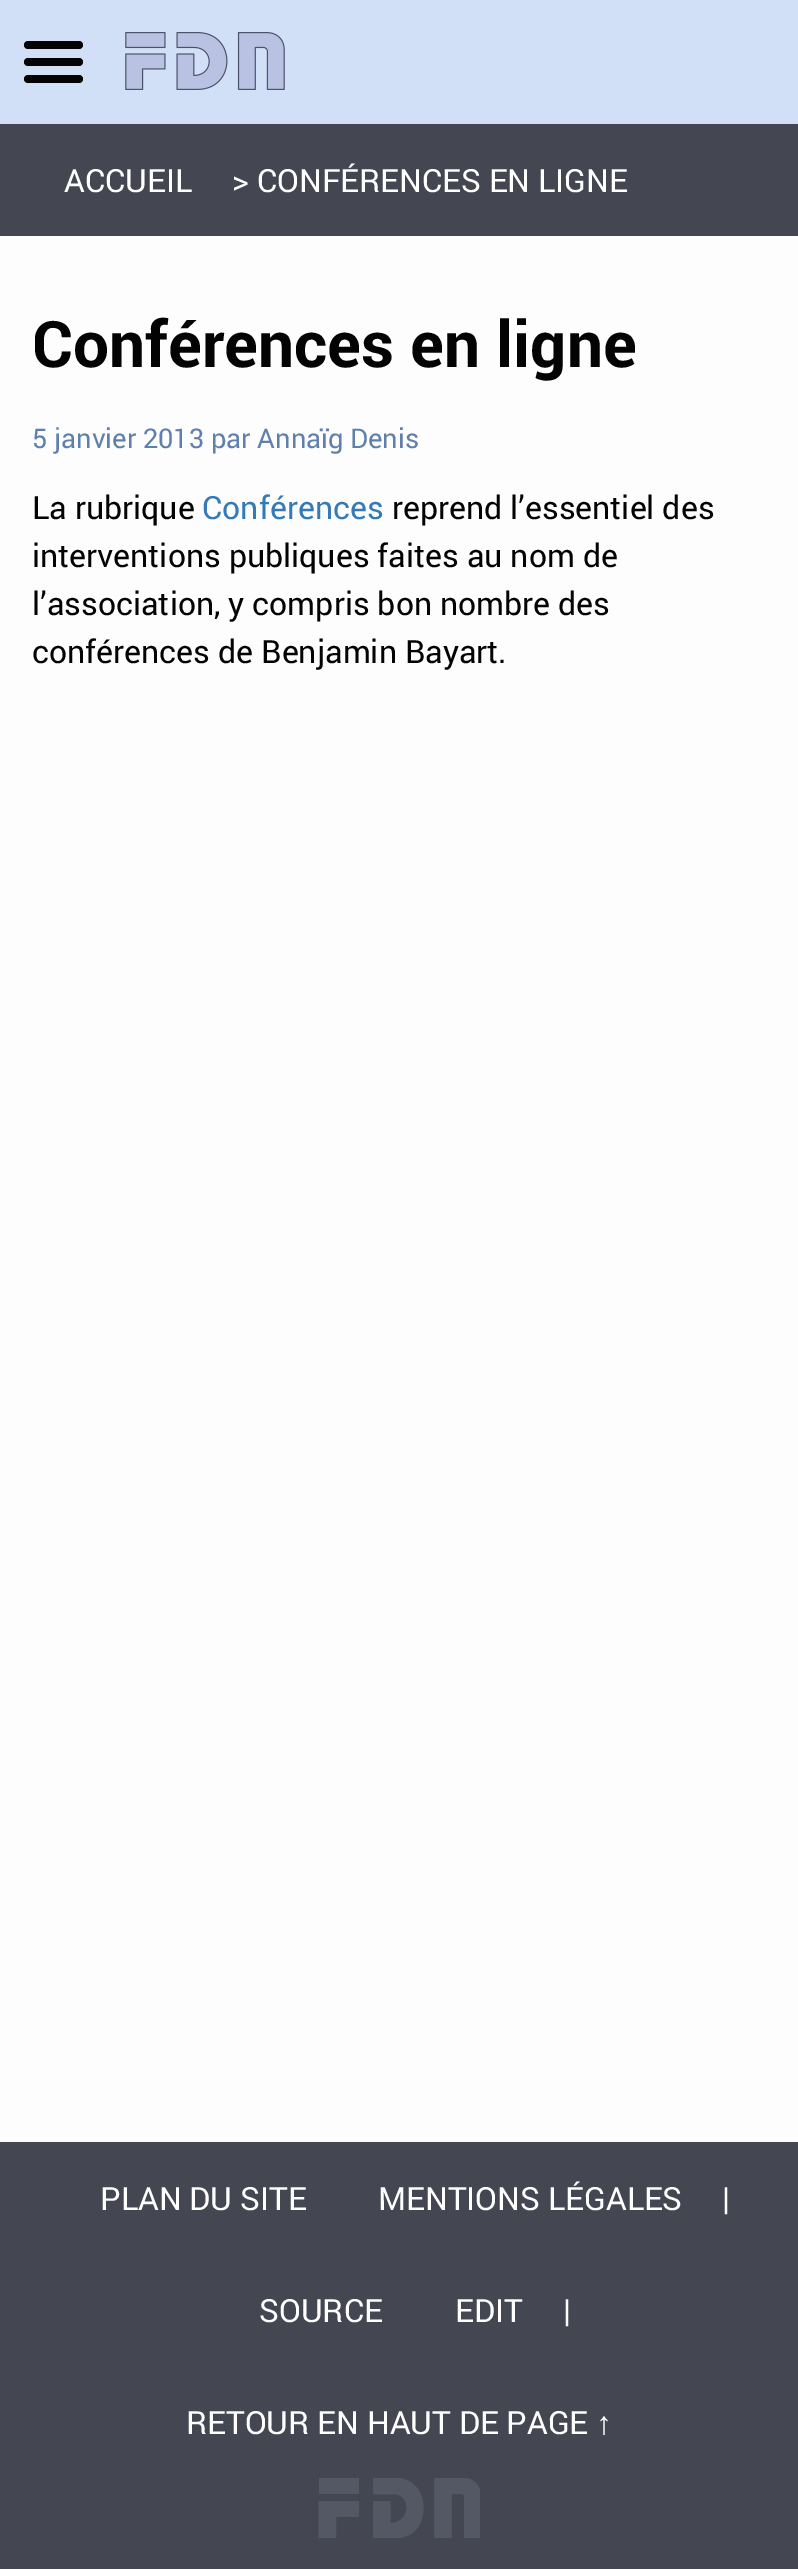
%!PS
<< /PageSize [798 2569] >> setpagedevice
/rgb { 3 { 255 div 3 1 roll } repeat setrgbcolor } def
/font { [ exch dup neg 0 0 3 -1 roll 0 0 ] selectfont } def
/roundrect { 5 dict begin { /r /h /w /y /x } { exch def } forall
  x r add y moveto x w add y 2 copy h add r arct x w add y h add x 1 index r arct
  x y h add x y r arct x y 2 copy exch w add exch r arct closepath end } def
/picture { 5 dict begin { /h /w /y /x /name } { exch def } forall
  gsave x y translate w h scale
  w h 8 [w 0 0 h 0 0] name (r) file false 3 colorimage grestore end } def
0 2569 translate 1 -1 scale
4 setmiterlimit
253 253 253 rgb
0 0 798 2569 rectfill
68 71 82 rgb
0 124 798 112 rectfill
209 224 246 rgb
0 0 798 124 rectfill
3 3 3 rgb
24 41 59 8 4 roundrect fill
(img/1.rgb) 125 32 160 58 picture
24 58 59 8 4 roundrect fill
24 75 59 8 4 roundrect fill
68 71 82 rgb
0 2142 798 427 rectfill
(img/2.rgb) 318 2478 162 60 picture
/Roboto-Regular 32 font
255 255 255 rgb
64 192 moveto (ACCUEIL) show
232 192 moveto (> CONFÉRENCES EN LIGNE) show
/Roboto-Bold 64 font
3 3 3 rgb
32 367 moveto (Conférences en ligne) show
/Roboto-Regular 27.25 font
95 127 173 rgb
32 448 moveto (5 janvier 2013 par Annaïg Denis) show
/Roboto-Regular 32 font
3 3 3 rgb
32 519 moveto (La rubrique) show
51 122 183 rgb
202 519 moveto (Conférences) show
3 3 3 rgb
[
  [(reprend l’essentiel des) 392 519]
  [(interventions publiques faites au nom de) 32 567]
  [(l’association, y compris bon nombre des) 32 615]
  [(conférences de Benjamin Bayart.) 32 663]
] { aload pop moveto show } forall
255 255 255 rgb
[
  [(PLAN DU SITE) 100 2210]
  [(MENTIONS LÉGALES) 378 2210]
  [(|) 722 2210]
  [(SOURCE) 259 2322]
  [(EDIT) 455 2322]
  [(|) 563 2322]
  [(RETOUR EN HAUT DE PAGE) 186 2434]
] { aload pop moveto show } forall
/LiberationSans-Regular 32 font
596 2434 moveto (↑) show
showpage
